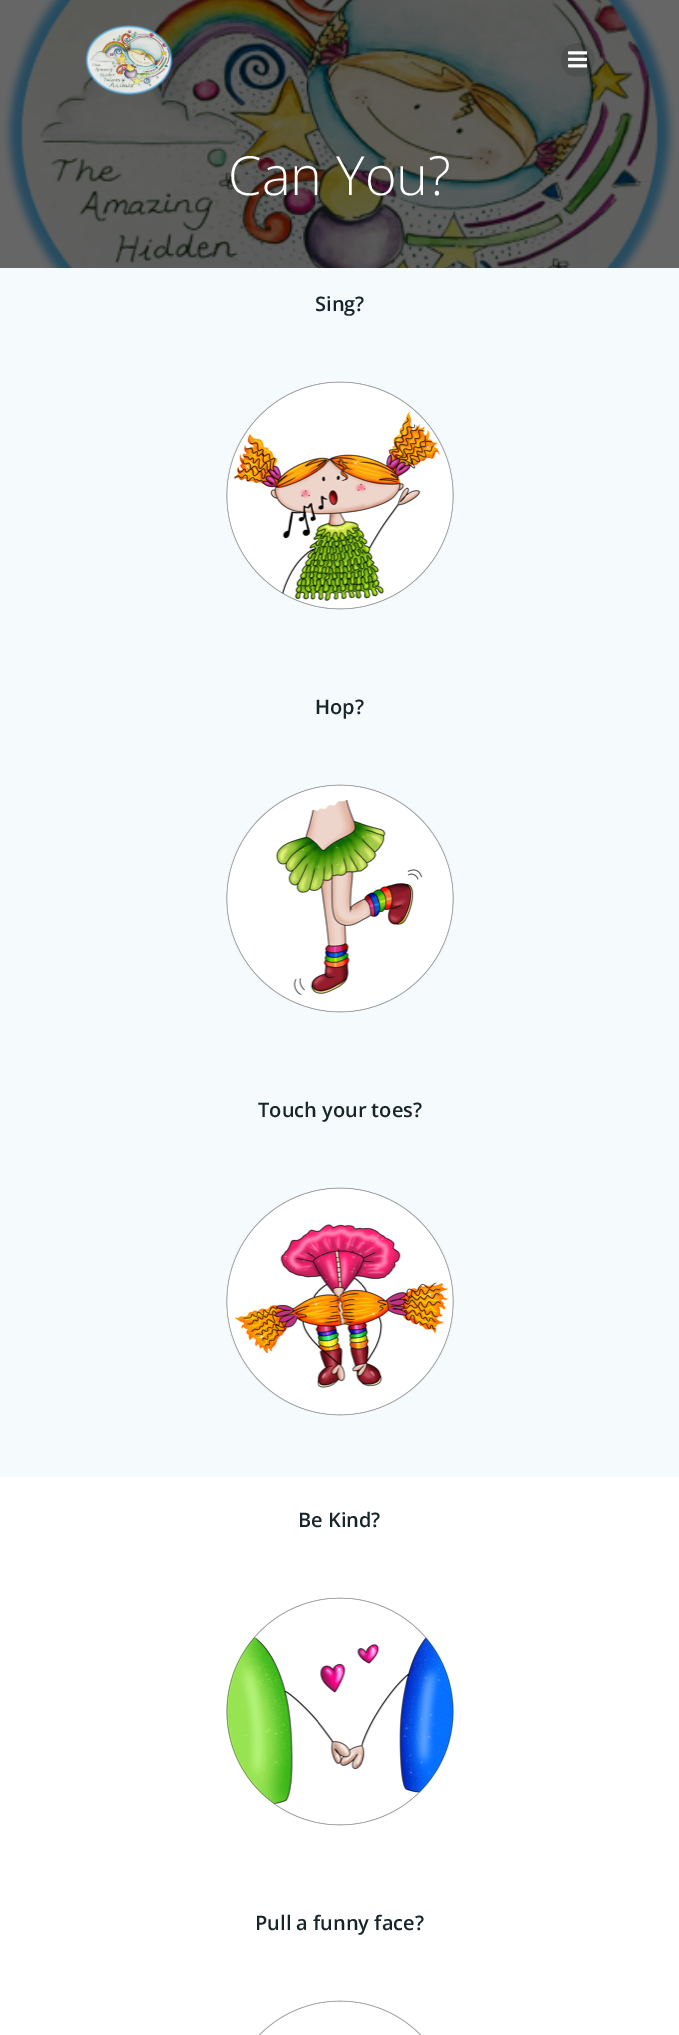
%!PS
<< /PageSize [679 2035] /PageUsesTransparency true >> setpagedevice
/rgb { 3 { 255 div 3 1 roll } repeat setrgbcolor } def
/font { [ exch dup neg 0 0 3 -1 roll 0 0 ] selectfont } def
/alpha { dup .setfillconstantalpha .setstrokeconstantalpha } def
/circle { newpath 0 360 arc closepath } def
/picture { 5 dict begin { /h /w /y /x /name } { exch def } forall
  gsave x y translate w h scale
  w h 8 [w 0 0 h 0 0] name (r) file false 3 colorimage grestore end } def
0 .pushpdf14devicefilter
0 2035 translate 1 -1 scale
4 setmiterlimit
255 255 255 rgb
0 0 679 2035 rectfill
102 102 102 rgb
0 0 679 268 rectfill
(img/3.rgb) 2 0 675 268 picture
(img/1.rgb) 85 25 88 70 picture
0.1 alpha
0 0 0 rgb
578 60 17 circle fill
1 alpha
(img/2.rgb) 568 51 19 17 picture
245 250 253 rgb
0 268 679 1209 rectfill
(img/4.rgb) 226 381 228 229 picture
(img/5.rgb) 226 784 228 229 picture
(img/6.rgb) 226 1187 228 229 picture
(img/7.rgb) 226 1597 228 229 picture
(img/8.rgb) 258 2000 164 35 picture
/OpenSans-Light 54 font
255 255 255 rgb
228 195 moveto (Can You?) show
/OpenSans-SemiBold 20 font
23 37 42 rgb
[
  [(Sing?) 315 311]
  [(Hop?) 315 714]
  [(Touch your toes?) 258 1117]
  [(Be Kind?) 298 1527]
  [(Pull a funny face?) 255 1930]
] { aload pop moveto show } forall
.poppdf14devicefilter showpage
